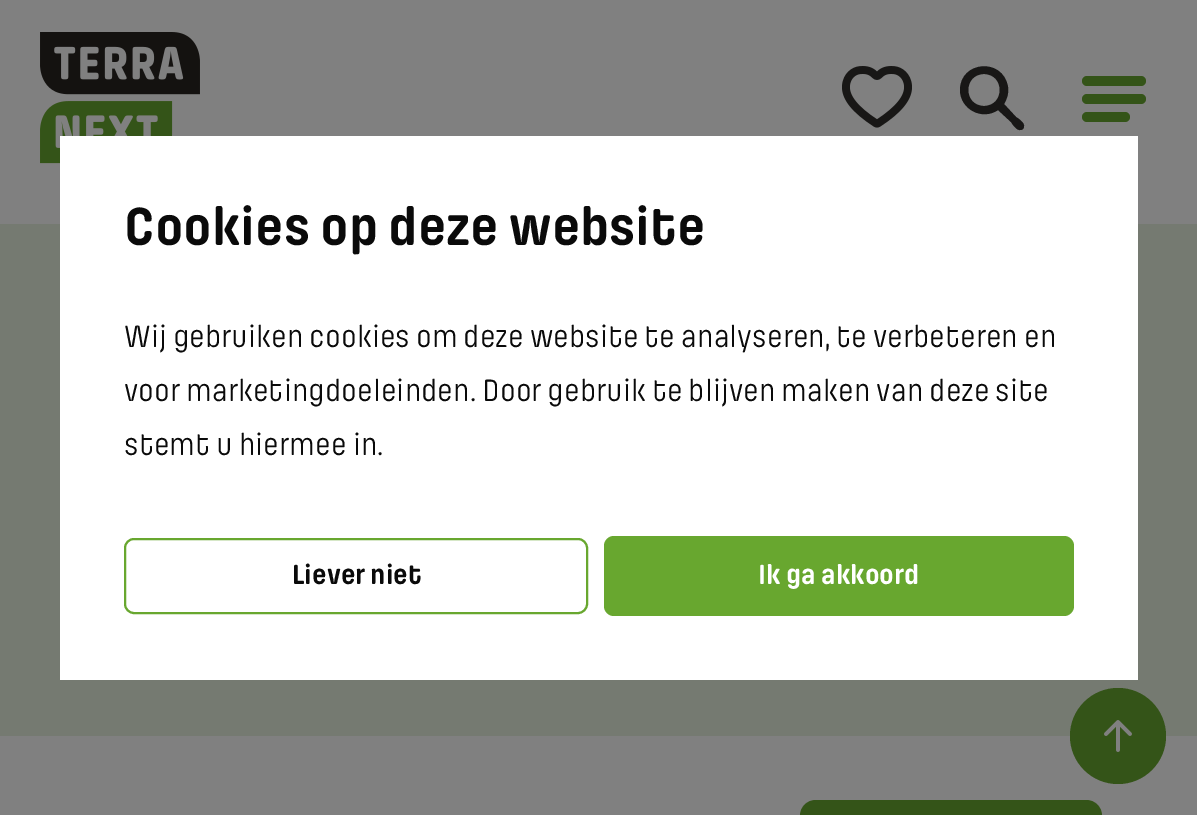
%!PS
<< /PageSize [1197 815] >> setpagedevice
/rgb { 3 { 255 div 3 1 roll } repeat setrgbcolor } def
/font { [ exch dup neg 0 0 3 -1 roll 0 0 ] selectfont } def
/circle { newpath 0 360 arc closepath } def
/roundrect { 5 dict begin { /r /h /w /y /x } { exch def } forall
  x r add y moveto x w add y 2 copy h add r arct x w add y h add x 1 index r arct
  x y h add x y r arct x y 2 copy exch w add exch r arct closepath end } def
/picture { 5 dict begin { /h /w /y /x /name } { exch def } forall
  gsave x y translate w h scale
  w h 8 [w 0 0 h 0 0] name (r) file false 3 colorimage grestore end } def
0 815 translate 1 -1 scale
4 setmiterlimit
128 128 128 rgb
0 0 1197 815 rectfill
(img/1.rgb) 40 32 160 132 picture
(img/2.rgb) 842 66 70 62 picture
24 23 22 rgb
984 74 moveto 963 74 963 106 984 106 curveto 1005 106 1005 74 984 74 curveto closepath 960 90 moveto 960 61 1003 57 1008 87 curveto 1009 93 1007 99 1004 104 curveto 1016 117 lineto 1019 119 1027 124 1023 129 curveto 1018 133 1013 125 1011 122 curveto 998 110 lineto 982 121 960 109 960 90 curveto closepath eofill
52 84 24 rgb
1082 112 48 10 5 roundrect fill
1082 94 64 10 5 roundrect fill
1082 76 64 10 5 roundrect fill
117 122 113 rgb
0 224 1197 512 rectfill
52 84 24 rgb
1118 736 48 circle fill
(img/3.rgb) 1104 720 28 32 picture
255 255 255 rgb
60 136 1078 544 rectfill
104 167 47 rgb
2 setlinewidth
125 539 462 74 9 roundrect stroke
604 536 470 80 10 roundrect fill
52 84 24 rgb
816 800 moveto 1086 800 lineto 1095 800 1102 807 1102 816 curveto 1102 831 lineto 800 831 lineto 800 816 lineto 800 807 807 800 816 800 curveto closepath fill
/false-SemiBold 56 font
10 10 10 rgb
124 245 moveto (Cookies op deze website) show
/false-Light 32 font
[
  [(Wij gebruiken cookies om deze website te analyseren, te verbeteren en) 124 347]
  [(voor marketingdoeleinden. Door gebruik te blijven maken van deze site) 124 401]
  [(stemt u hiermee in.) 124 455]
] { aload pop moveto show } forall
/false-SemiBold 28.75 font
292 584 moveto (Liever niet) show
255 255 255 rgb
758 584 moveto (Ik ga akkoord) show
showpage
